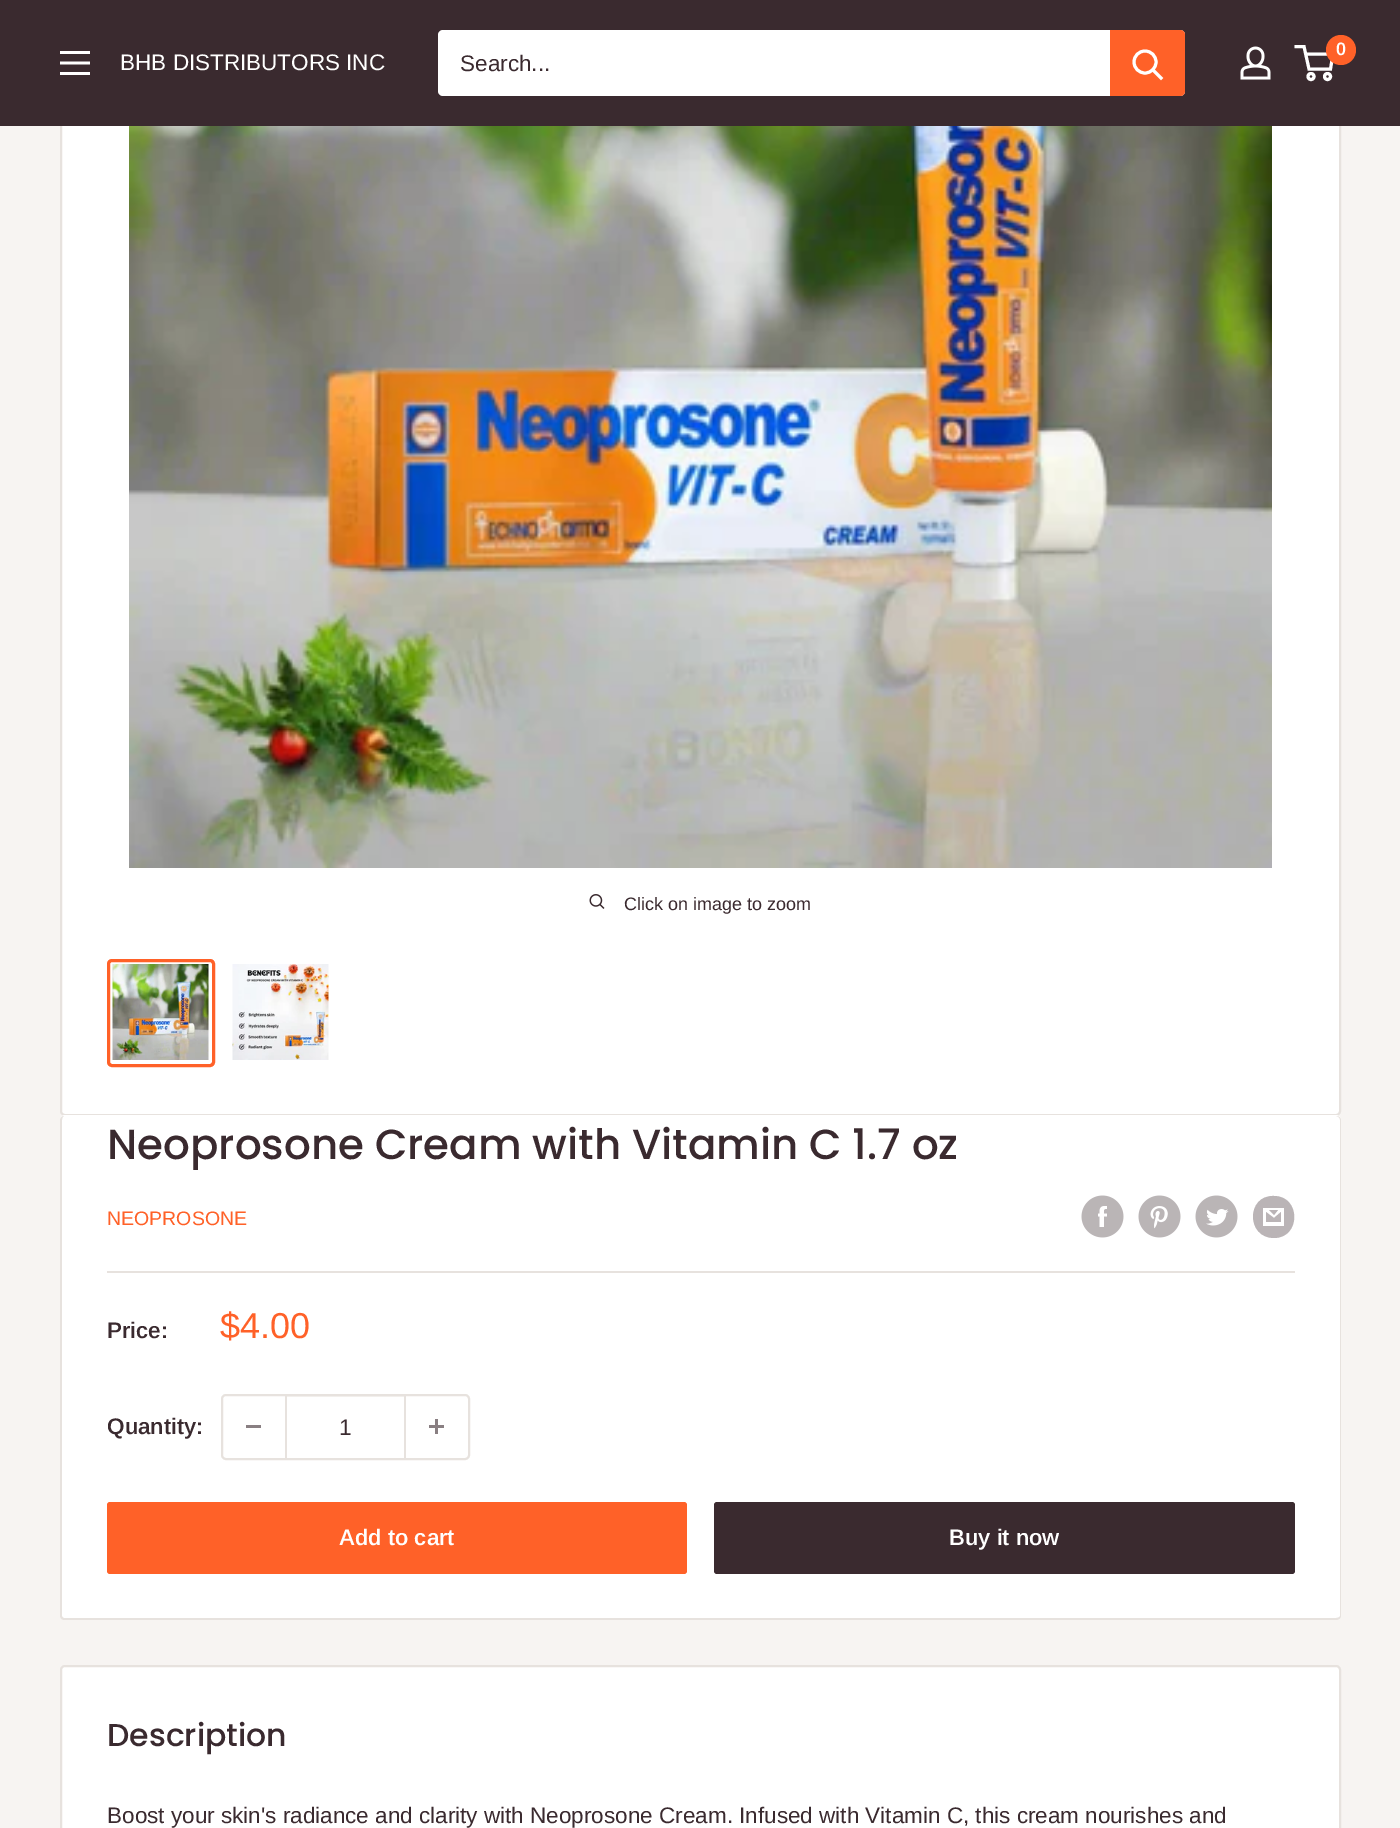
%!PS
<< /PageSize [1400 1828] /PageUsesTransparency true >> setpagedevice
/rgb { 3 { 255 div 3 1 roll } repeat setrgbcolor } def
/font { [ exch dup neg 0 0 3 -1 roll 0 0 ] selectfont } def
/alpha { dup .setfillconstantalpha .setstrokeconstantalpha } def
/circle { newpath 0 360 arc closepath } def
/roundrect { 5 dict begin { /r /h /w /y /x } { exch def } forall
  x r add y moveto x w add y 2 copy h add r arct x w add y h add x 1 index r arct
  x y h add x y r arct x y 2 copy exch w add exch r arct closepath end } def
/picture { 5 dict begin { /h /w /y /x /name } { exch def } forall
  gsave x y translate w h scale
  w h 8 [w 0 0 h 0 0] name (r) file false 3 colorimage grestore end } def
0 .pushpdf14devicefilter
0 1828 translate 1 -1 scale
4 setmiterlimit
247 244 242 rgb
0 0 1400 1828 rectfill
255 255 255 rgb
61 -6 1279 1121 4 roundrect gsave fill grestore
231 226 222 rgb
2 setlinewidth
stroke
58 42 47 rgb
0 0 1400 126 rectfill
(img/1.rgb) 1240 46 31 34 picture
255 255 255 rgb
3 setlinewidth
1311 76.5 3 circle stroke
1327.5 76.5 3 circle stroke
1305.5 54 moveto 1333 54 lineto 1330.5 69 lineto 1309 69 lineto 1304 46.5 lineto 1294.5 46.5 lineto stroke
255 97 40 rgb
1341 50 15 circle fill
(img/2.rgb) 60 51 30 24 picture
255 255 255 rgb
438 30 747 66 5 roundrect fill
255 97 40 rgb
1110 30 moveto 1180 30 lineto 1183 30 1185 32 1185 35 curveto 1185 91 lineto 1185 94 1183 96 1180 96 curveto 1110 96 lineto closepath fill
255 255 255 rgb
2 setlinecap
1161 78 moveto 1153.5 70.5 lineto stroke
0 setlinecap
1145 62 11 circle stroke
(img/3.rgb) 129 126 1143 742 picture
(img/4.rgb) 589 894 16 15 picture
255 97 40 rgb
108.5 960.5 105 105 3.5 roundrect stroke
(img/5.rgb) 112 964 97 96 picture
(img/6.rgb) 232 964 97 96 picture
255 255 255 rgb
65 1115 moveto 62 1115 60 1118 60 1120 curveto 60 1118 62 1116 64 1116 curveto 1336 1116 lineto 1339 1116 1341 1118 1341 1120 curveto 1341 1118 1339 1115 1336 1115 curveto closepath fill
60 1116 1281 504 5 roundrect fill
231 226 222 rgb
64 1116 moveto 1336 1116 lineto 1339 1116 1341 1118 1341 1120 curveto 1341 1616 lineto 1341 1618 1339 1620 1336 1620 curveto 64 1620 lineto 62 1620 60 1618 60 1616 curveto 60 1120 lineto 60 1118 62 1116 64 1116 curveto closepath 64 1116 moveto 1336 1116 lineto 1338 1116 1340 1118 1340 1120 curveto 1340 1616 lineto 1340 1617 1338 1618 1336 1618 curveto 64 1618 lineto 63 1618 62 1617 62 1616 curveto 62 1120 lineto 62 1118 63 1116 64 1116 curveto closepath eofill
(img/7.rgb) 1081 1195 43 43 picture
(img/8.rgb) 1138 1195 43 43 picture
(img/9.rgb) 1195 1195 43 43 picture
186 180 182 rgb
1274 1238 moveto 1246 1238 1246 1195 1274 1196 curveto 1301 1196 1301 1238 1274 1238 curveto closepath 1269 1210 moveto 1278 1210 lineto 1274 1215 lineto closepath 1281 1212 moveto 1281 1222 lineto 1266 1222 lineto 1266 1212 lineto 1274 1218 lineto closepath 1284 1208 moveto 1263 1208 lineto 1263 1226 lineto 1284 1226 lineto closepath fill
231 226 222 rgb
107 1271 1188 2 rectfill
2 setlinewidth
222 1395 247 64 4 roundrect stroke
[
  [246 1425 15 3 137 127 130]
] { aload pop rgb rectfill } forall
0.4 alpha
[
  [287 1396 117 1 231 226 222]
] { aload pop rgb rectfill } forall
1 alpha
[
  [404 1395 2 63 231 226 222]
  [285 1395 2 63 231 226 222]
] { aload pop rgb rectfill } forall
(img/10.rgb) 429 1419 15 15 picture
255 97 40 rgb
107 1502 580 72 3 roundrect fill
58 42 47 rgb
714 1502 581 72 3 roundrect fill
255 255 255 rgb
61 1666 1279 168 4 roundrect gsave fill grestore
231 226 222 rgb
stroke
/Arimo-SemiBold 18 font
255 255 255 rgb
1336 55 moveto (0) show
/Arimo-Regular 22.5 font
120 70 moveto (BHB DISTRIBUTORS INC) show
58 42 47 rgb
460 71 moveto (Search...) show
/Arimo-Regular 18 font
624 910 moveto (Click on image to zoom) show
/Poppins-Medium 42 font
107 1159 moveto (Neoprosone Cream with Vitamin C 1.7 oz) show
/Arimo-Regular 19.5 font
255 97 40 rgb
107 1225 moveto (NEOPROSONE) show
/Arimo-SemiBold 22.5 font
58 42 47 rgb
107 1338 moveto (Price:) show
/Arimo-Regular 36 font
255 97 40 rgb
220 1338 moveto ($4.00) show
/Arimo-SemiBold 22.5 font
58 42 47 rgb
107 1434 moveto (Quantity:) show
/Arimo-Regular 22.5 font
339 1435 moveto (1) show
/Arimo-SemiBold 22.5 font
255 255 255 rgb
339 1545 moveto (Add to cart) show
949 1545 moveto (Buy it now) show
/Poppins-Medium 31.5 font
58 42 47 rgb
107 1746 moveto (Description) show
/Arimo-Regular 22.5 font
107 1823 moveto (Boost your skin's radiance and clarity with Neoprosone Cream. Infused with Vitamin C, this cream nourishes and) show
.poppdf14devicefilter showpage
